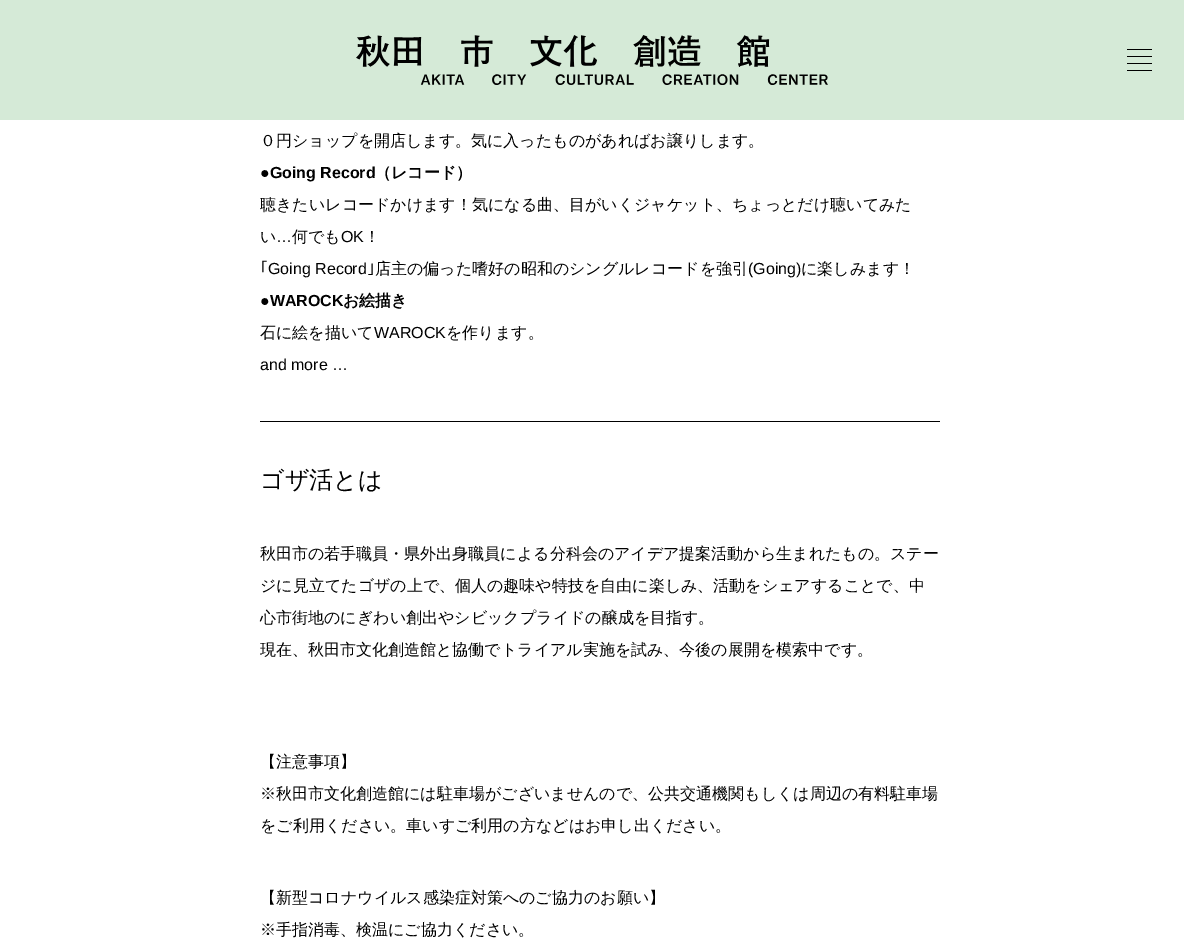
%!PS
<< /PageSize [1184 943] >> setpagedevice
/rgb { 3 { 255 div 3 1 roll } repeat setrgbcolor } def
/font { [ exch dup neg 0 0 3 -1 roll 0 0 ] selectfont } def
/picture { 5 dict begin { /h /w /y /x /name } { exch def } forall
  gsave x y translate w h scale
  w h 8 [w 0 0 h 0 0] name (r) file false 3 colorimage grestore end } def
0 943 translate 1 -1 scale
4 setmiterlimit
255 255 255 rgb
0 0 1184 943 rectfill
213 234 215 rgb
0 0 1184 120 rectfill
(img/1.rgb) 356 35 472 50 picture
[
  [1127 49 25 1 0 0 0]
  [1127 56 25 1 0 0 0]
  [1127 63 25 1 0 0 0]
  [1127 70 25 1 0 0 0]
  [260 421 680 1 0 0 0]
] { aload pop rgb rectfill } forall
/WenQuanYiZenHei-Medium 16 font
260 146 moveto (０円ショップを開店します。気に入ったものがあればお譲りします。) show
/LiberationSans-Bold 16 font
260 178 moveto (●Going Record) show
/WenQuanYiZenHei-Bold 16 font
375 178 moveto (（レコード）) show
/WenQuanYiZenHei-Medium 16 font
260 210 moveto (聴きたいレコードかけます！気になる曲、目がいくジャケット、ちょっとだけ聴いてみた) show
260 242 moveto (い) show
/LiberationSans-Regular 16 font
276 242 moveto (…) show
/WenQuanYiZenHei-Medium 16 font
292 242 moveto (何でも) show
/LiberationSans-Regular 16 font
341 242 moveto (OK) show
/WenQuanYiZenHei-Medium 16 font
364 242 moveto (！) show
/IPAPGothic-Regular 16 font
260 274 moveto (｢) show
/LiberationSans-Regular 16 font
268 274 moveto (Going Record) show
/IPAPGothic-Regular 16 font
367 274 moveto (｣) show
/WenQuanYiZenHei-Medium 16 font
375 274 moveto (店主の偏った嗜好の昭和のシングルレコードを強引) show
/LiberationSans-Regular 16 font
748 274 moveto (\(Going\)) show
/WenQuanYiZenHei-Medium 16 font
801 274 moveto (に楽しみます！) show
/LiberationSans-Bold 16 font
260 306 moveto (●WAROCK) show
/WenQuanYiZenHei-Bold 16 font
343 306 moveto (お絵描き) show
/WenQuanYiZenHei-Medium 16 font
260 338 moveto (石に絵を描いて) show
/LiberationSans-Regular 16 font
374 338 moveto (WAROCK) show
/WenQuanYiZenHei-Medium 16 font
446 338 moveto (を作ります。) show
/LiberationSans-Regular 16 font
260 370 moveto (and more …) show
/WenQuanYiZenHei-Medium 24 font
260 488 moveto (ゴザ活とは) show
/WenQuanYiZenHei-Medium 16 font
[
  [(秋田市の若手職員・県外出身職員による分科会のアイデア提案活動から生まれたもの。ステー) 260 559]
  [(ジに見立てたゴザの上で、個人の趣味や特技を自由に楽しみ、活動をシェアすることで、中) 260 591]
  [(心市街地のにぎわい創出やシビックプライドの醸成を目指す。) 260 623]
  [(現在、秋田市文化創造館と協働でトライアル実施を試み、今後の展開を模索中です。) 260 655]
  [(【注意事項】) 260 767]
  [(※秋田市文化創造館には駐車場がございませんので、公共交通機関もしくは周辺の有料駐車場) 260 799]
  [(をご利用ください。車いすご利用の方などはお申し出ください。) 260 831]
  [(【新型コロナウイルス感染症対策へのご協力のお願い】) 260 903]
  [(※手指消毒、検温にご協力ください。) 260 935]
] { aload pop moveto show } forall
showpage
